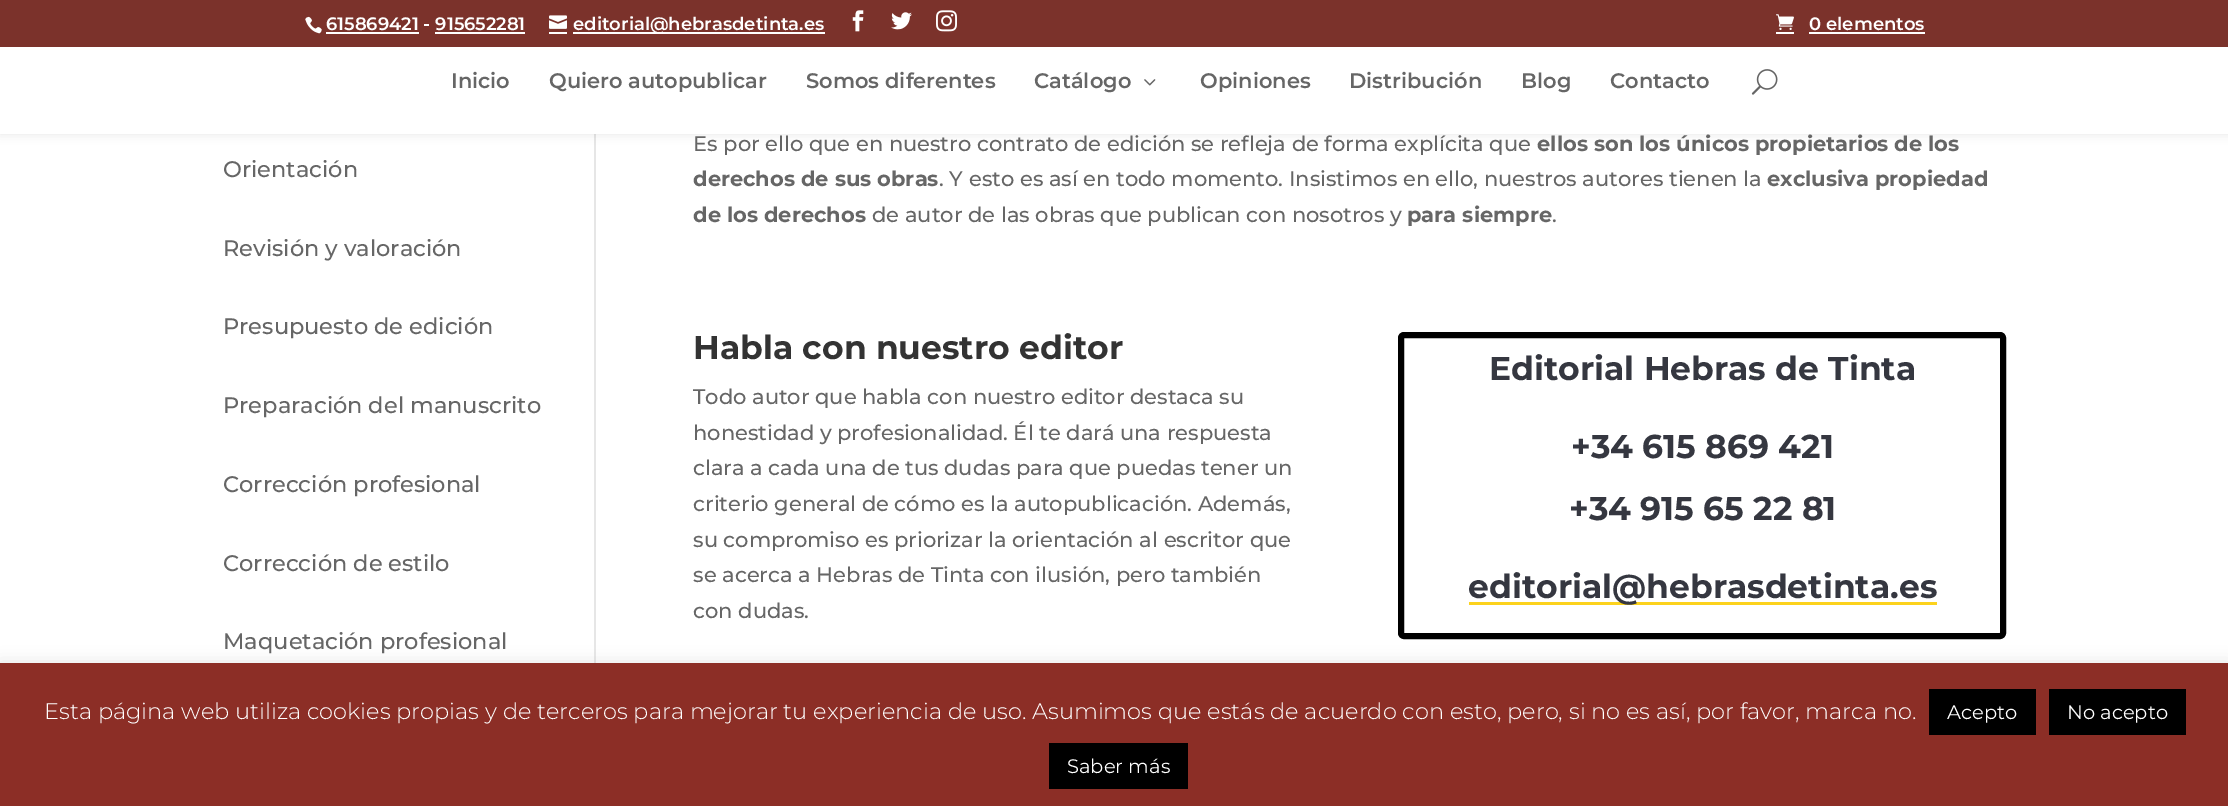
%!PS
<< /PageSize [2228 806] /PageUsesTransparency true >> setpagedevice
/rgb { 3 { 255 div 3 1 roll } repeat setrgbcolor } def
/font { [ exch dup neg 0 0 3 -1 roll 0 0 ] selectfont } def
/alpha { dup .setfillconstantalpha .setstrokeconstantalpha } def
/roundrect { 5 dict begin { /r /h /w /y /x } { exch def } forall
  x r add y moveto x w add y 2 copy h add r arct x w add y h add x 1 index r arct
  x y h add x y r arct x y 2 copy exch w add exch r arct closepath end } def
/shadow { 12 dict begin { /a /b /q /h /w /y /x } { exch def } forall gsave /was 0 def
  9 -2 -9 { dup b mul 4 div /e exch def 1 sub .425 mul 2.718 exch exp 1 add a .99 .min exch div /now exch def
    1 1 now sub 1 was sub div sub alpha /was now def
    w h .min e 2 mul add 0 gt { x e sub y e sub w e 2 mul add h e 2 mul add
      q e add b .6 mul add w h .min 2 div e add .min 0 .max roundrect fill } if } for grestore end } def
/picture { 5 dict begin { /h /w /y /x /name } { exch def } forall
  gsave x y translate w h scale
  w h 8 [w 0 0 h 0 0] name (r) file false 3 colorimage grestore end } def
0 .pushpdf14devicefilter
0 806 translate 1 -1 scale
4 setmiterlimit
255 255 255 rgb
0 0 2228 806 rectfill
230 230 230 rgb
594 134 2 529 rectfill
0 0 0 rgb
0 47 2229 87 0 5 0.1 shadow
123 50 43 rgb
0 0 2228 47 rectfill
(img/1.rgb) 305 16 17 18 picture
255 255 255 rgb
326 32 93 2 rectfill
435 32 90 2 rectfill
(img/2.rgb) 549 15 18 14 picture
549 32 18 2 rectfill
573 32 252 2 rectfill
(img/3.rgb) 852 10 12 22 picture
(img/4.rgb) 891 12 21 18 picture
(img/5.rgb) 936 10 21 22 picture
(img/6.rgb) 1776 14 18 16 picture
[
  [1809 32 116 2 255 255 255]
  [1776 32 18 2 255 255 255]
  [0 47 2228 87 255 255 255]
] { aload pop rgb rectfill } forall
(img/7.rgb) 1144 79 12 7 picture
(img/8.rgb) 1751 69 27 26 picture
0 0 0 rgb
6 setlinewidth
1401 335 602 301 3 roundrect stroke
252 210 29 rgb
1469 602 468 3 rectfill
172 171 171 rgb
0 662 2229 144 0 7.5 0.3 shadow
[
  [0 663 2228 143 140 46 38]
  [1929 689 107 46 0 0 0]
  [2049 689 137 46 0 0 0]
  [1049 743 139 46 0 0 0]
] { aload pop rgb rectfill } forall
/Montserrat-SemiBold 18 font
255 255 255 rgb
[
  [(615869421 - 915652281) 326 30]
  [(editorial@hebrasdetinta.es) 573 30]
  [(0 elementos) 1809 30]
] { aload pop moveto show } forall
/Montserrat-SemiBold 21 font
102 102 102 rgb
[
  [(Inicio) 451 88]
  [(Quiero autopublicar) 549 88]
  [(Somos diferentes) 806 88]
  [(Catálogo) 1034 88]
  [(Opiniones) 1200 88]
  [(Distribución) 1349 88]
  [(Blog) 1521 88]
  [(Contacto) 1610 88]
] { aload pop moveto show } forall
/Montserrat-Medium 22.5 font
[
  [(Orientación) 223 177]
  [(Revisión y valoración) 223 256]
  [(Presupuesto de edición) 223 334]
  [(Preparación del manuscrito) 223 413]
  [(Corrección profesional) 223 492]
  [(Corrección de estilo) 223 571]
  [(Maquetación profesional) 223 649]
] { aload pop moveto show } forall
/Montserrat-Medium 21 font
693 151 moveto (Es por ello que en nuestro contrato de edición se refleja de forma explícita que) show
/Montserrat-Bold 21 font
1537 151 moveto (ellos son los únicos propietarios de los) show
693 186 moveto (derechos de sus obras) show
/Montserrat-Medium 21 font
939 186 moveto (. Y esto es así en todo momento. Insistimos en ello, nuestros autores tienen la) show
/Montserrat-Bold 21 font
1767 186 moveto (exclusiva propiedad) show
693 222 moveto (de los derechos) show
/Montserrat-Medium 21 font
872 222 moveto (de autor de las obras que publican con nosotros y) show
/Montserrat-Bold 21 font
1407 222 moveto (para siempre) show
/Montserrat-Medium 21 font
1552 222 moveto (.) show
/Montserrat-Bold 33 font
51 51 51 rgb
693 359 moveto (Habla con nuestro editor) show
/Montserrat-Medium 21 font
102 102 102 rgb
[
  [(Todo autor que habla con nuestro editor destaca su) 693 404]
  [(honestidad y profesionalidad. Él te dará una respuesta) 693 440]
  [(clara a cada una de tus dudas para que puedas tener un) 693 475]
  [(criterio general de cómo es la autopublicación. Además,) 693 511]
  [(su compromiso es priorizar la orientación al escritor que) 693 547]
  [(se acerca a Hebras de Tinta con ilusión, pero también) 693 582]
  [(con dudas.) 693 618]
] { aload pop moveto show } forall
/Montserrat-Bold 33 font
53 55 64 rgb
[
  [(Editorial Hebras de Tinta) 1489 380]
  [(+34 615 869 421) 1571 458]
  [(+34 915 65 22 81) 1569 520]
  [(editorial@hebrasdetinta.es) 1468 598]
] { aload pop moveto show } forall
/Montserrat-Light 22.5 font
255 255 255 rgb
44 719 moveto (Esta página web utiliza cookies propias y de terceros para mejorar tu experiencia de uso. Asumimos que estás de acuerdo con esto, pero, si no es así, por favor, marca no.) show
/Montserrat-Regular 19.5 font
[
  [(Acepto) 1947 719]
  [(No acepto) 2067 719]
  [(Saber más) 1067 773]
] { aload pop moveto show } forall
.poppdf14devicefilter showpage
